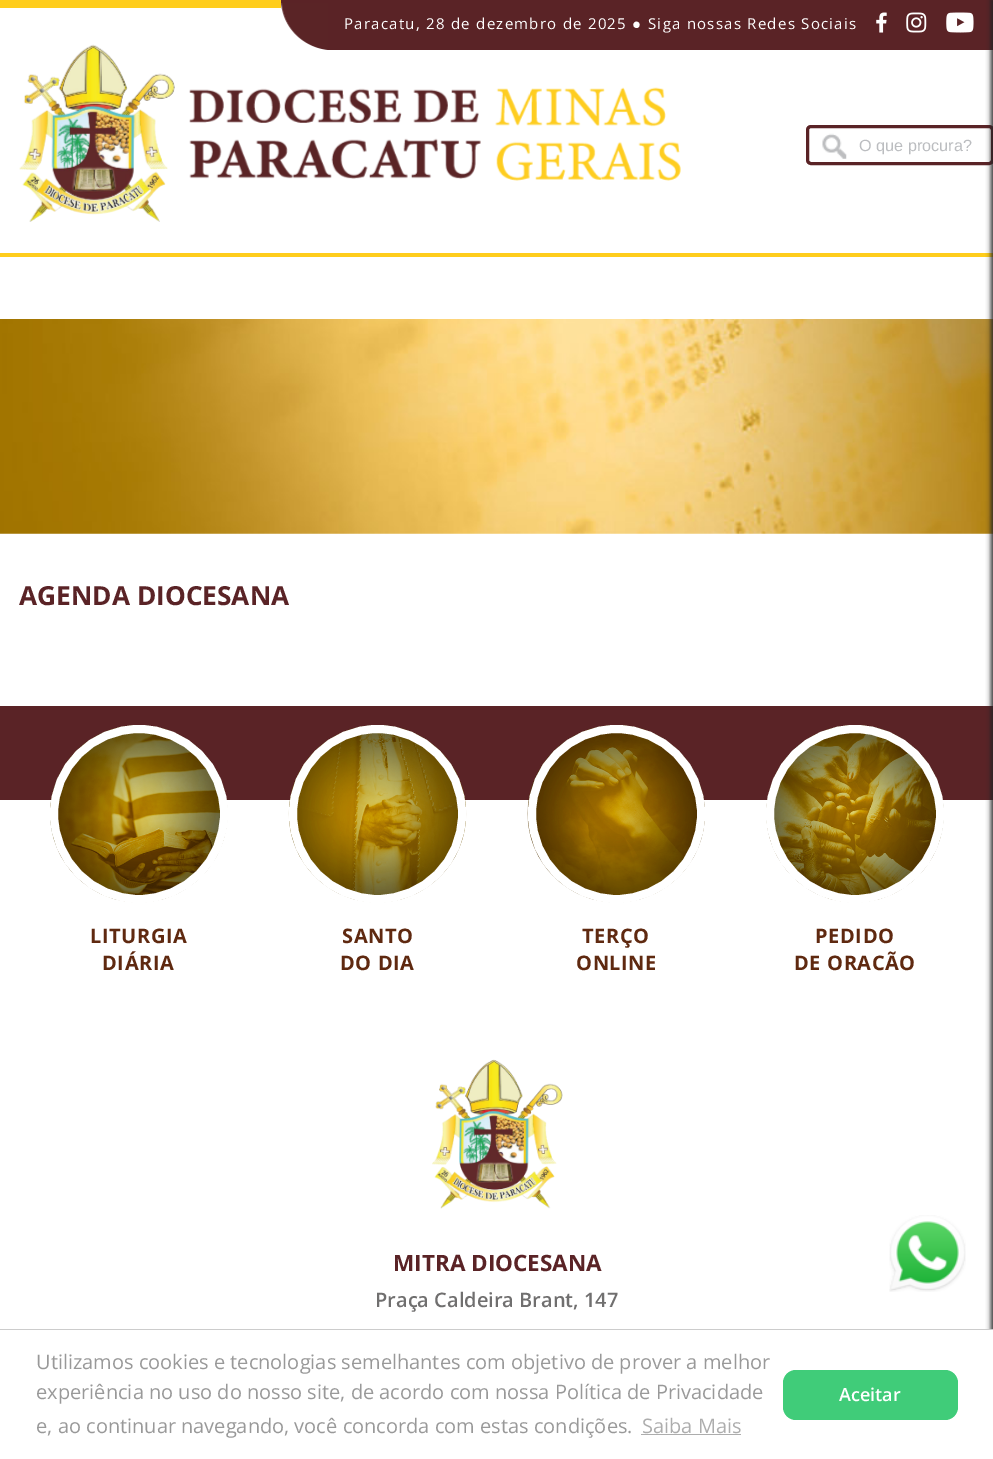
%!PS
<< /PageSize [993 1459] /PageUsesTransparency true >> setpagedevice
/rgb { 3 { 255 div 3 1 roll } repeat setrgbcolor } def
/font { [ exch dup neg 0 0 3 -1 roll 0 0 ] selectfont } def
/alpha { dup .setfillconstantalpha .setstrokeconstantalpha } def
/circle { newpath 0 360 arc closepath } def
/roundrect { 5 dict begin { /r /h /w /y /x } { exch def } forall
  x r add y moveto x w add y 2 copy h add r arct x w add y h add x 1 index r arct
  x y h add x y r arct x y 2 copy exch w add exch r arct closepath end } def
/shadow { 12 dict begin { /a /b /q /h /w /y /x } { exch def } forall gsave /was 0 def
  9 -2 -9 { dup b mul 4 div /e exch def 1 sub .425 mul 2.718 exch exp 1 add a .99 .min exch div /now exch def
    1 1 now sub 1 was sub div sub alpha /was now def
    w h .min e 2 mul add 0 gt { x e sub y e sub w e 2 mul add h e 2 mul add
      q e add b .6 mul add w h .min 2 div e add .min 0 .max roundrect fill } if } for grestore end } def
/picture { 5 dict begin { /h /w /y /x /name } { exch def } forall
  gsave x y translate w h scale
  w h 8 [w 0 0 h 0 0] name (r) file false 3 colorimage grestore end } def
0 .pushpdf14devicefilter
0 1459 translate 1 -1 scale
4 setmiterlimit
255 255 255 rgb
0 0 993 1459 rectfill
255 205 28 rgb
0 0 281 8 rectfill
90 35 38 rgb
281 0 712 50 rectfill
(img/1.rgb) 281 3 47 47 picture
(img/2.rgb) 876 12 11 21 picture
(img/3.rgb) 906 12 21 21 picture
(img/4.rgb) 946 12 28 21 picture
255 205 28 rgb
0 253 993 4 rectfill
(img/8.rgb) 822 133 25 26 picture
90 35 38 rgb
3 setlinewidth
807.5 126.5 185 37 3.5 roundrect stroke
(img/9.rgb) 0 319 993 215 picture
0 706 993 94 rectfill
37 37 37 rgb
991 0 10 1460 0 2.5 1 shadow
(img/5.rgb) 19 44 156 178 picture
(img/6.rgb) 189 88 292 91 picture
(img/7.rgb) 495 87 186 94 picture
(img/10.rgb) 50 725 178 178 picture
255 255 255 rgb
8 setlinewidth
139 814 85 circle stroke
(img/11.rgb) 288 725 179 178 picture
293 729 169 170 84.5 roundrect stroke
(img/12.rgb) 527 725 178 178 picture
532 729 169 170 84.5 roundrect stroke
(img/13.rgb) 766 725 178 178 picture
855 814 85 circle stroke
(img/14.rgb) 432 1059 131 150 picture
(img/15.rgb) 889 1215 77 77 picture
[
  [985 1330 8 129 255 255 255]
  [0 1329 993 1 204 204 204]
  [641 1434 100 1 173 173 173]
] { aload pop rgb rectfill } forall
64 204 121 rgb
783 1370 175 50 13 roundrect fill
/OpenSans-Regular 15 font
255 255 255 rgb
344 29 moveto 1.25 0 (Paracatu, 28 de dezembro de 2025) ashow
/LiberationSans-Regular 15 font
632 29 moveto 1.25 0 (●) ashow
/OpenSans-Regular 15 font
648 29 moveto 1.25 0 (Siga nossas Redes Sociais) ashow
/LiberationSans-Regular 16.25 font
187 189 192 rgb
859 151 moveto (O que procura?) show
/OpenSans-Bold 26.25 font
90 35 38 rgb
19 605 moveto (AGENDA DIOCESANA) show
/OpenSans-Bold 20 font
95 41 16 rgb
90 943 moveto 0.6 0 (LITURGIA) ashow
102 970 moveto 0.6 0 (DIÁRIA) ashow
342 943 moveto 0.6 0 (SANTO) ashow
340 970 moveto 0.6 0 (DO DIA) ashow
582 943 moveto 0.6 0 (TERÇO) ashow
576 970 moveto 0.6 0 (ONLINE) ashow
815 943 moveto 0.6 0 (PEDIDO) ashow
794 970 moveto 0.6 0 (DE ORACÃO) ashow
/OpenSans-Bold 22.5 font
90 35 38 rgb
393 1271 moveto (MITRA DIOCESANA) show
/OpenSans-SemiBold 20 font
112 111 111 rgb
375 1307 moveto (Praça Caldeira Brant, 147) show
/OpenSans-Regular 20 font
153 153 153 rgb
[
  [(Utilizamos cookies e tecnologias semelhantes com objetivo de prover a melhor) 36 1369]
  [(experiência no uso do nosso site, de acordo com nossa Política de Privacidade) 36 1399]
  [(e, ao continuar navegando, você concorda com estas condições.) 36 1433]
] { aload pop moveto show } forall
173 173 173 rgb
642 1433 moveto (Saiba Mais) show
/OpenSans-SemiBold 18 font
255 255 255 rgb
839 1401 moveto (Aceitar) show
.poppdf14devicefilter showpage
